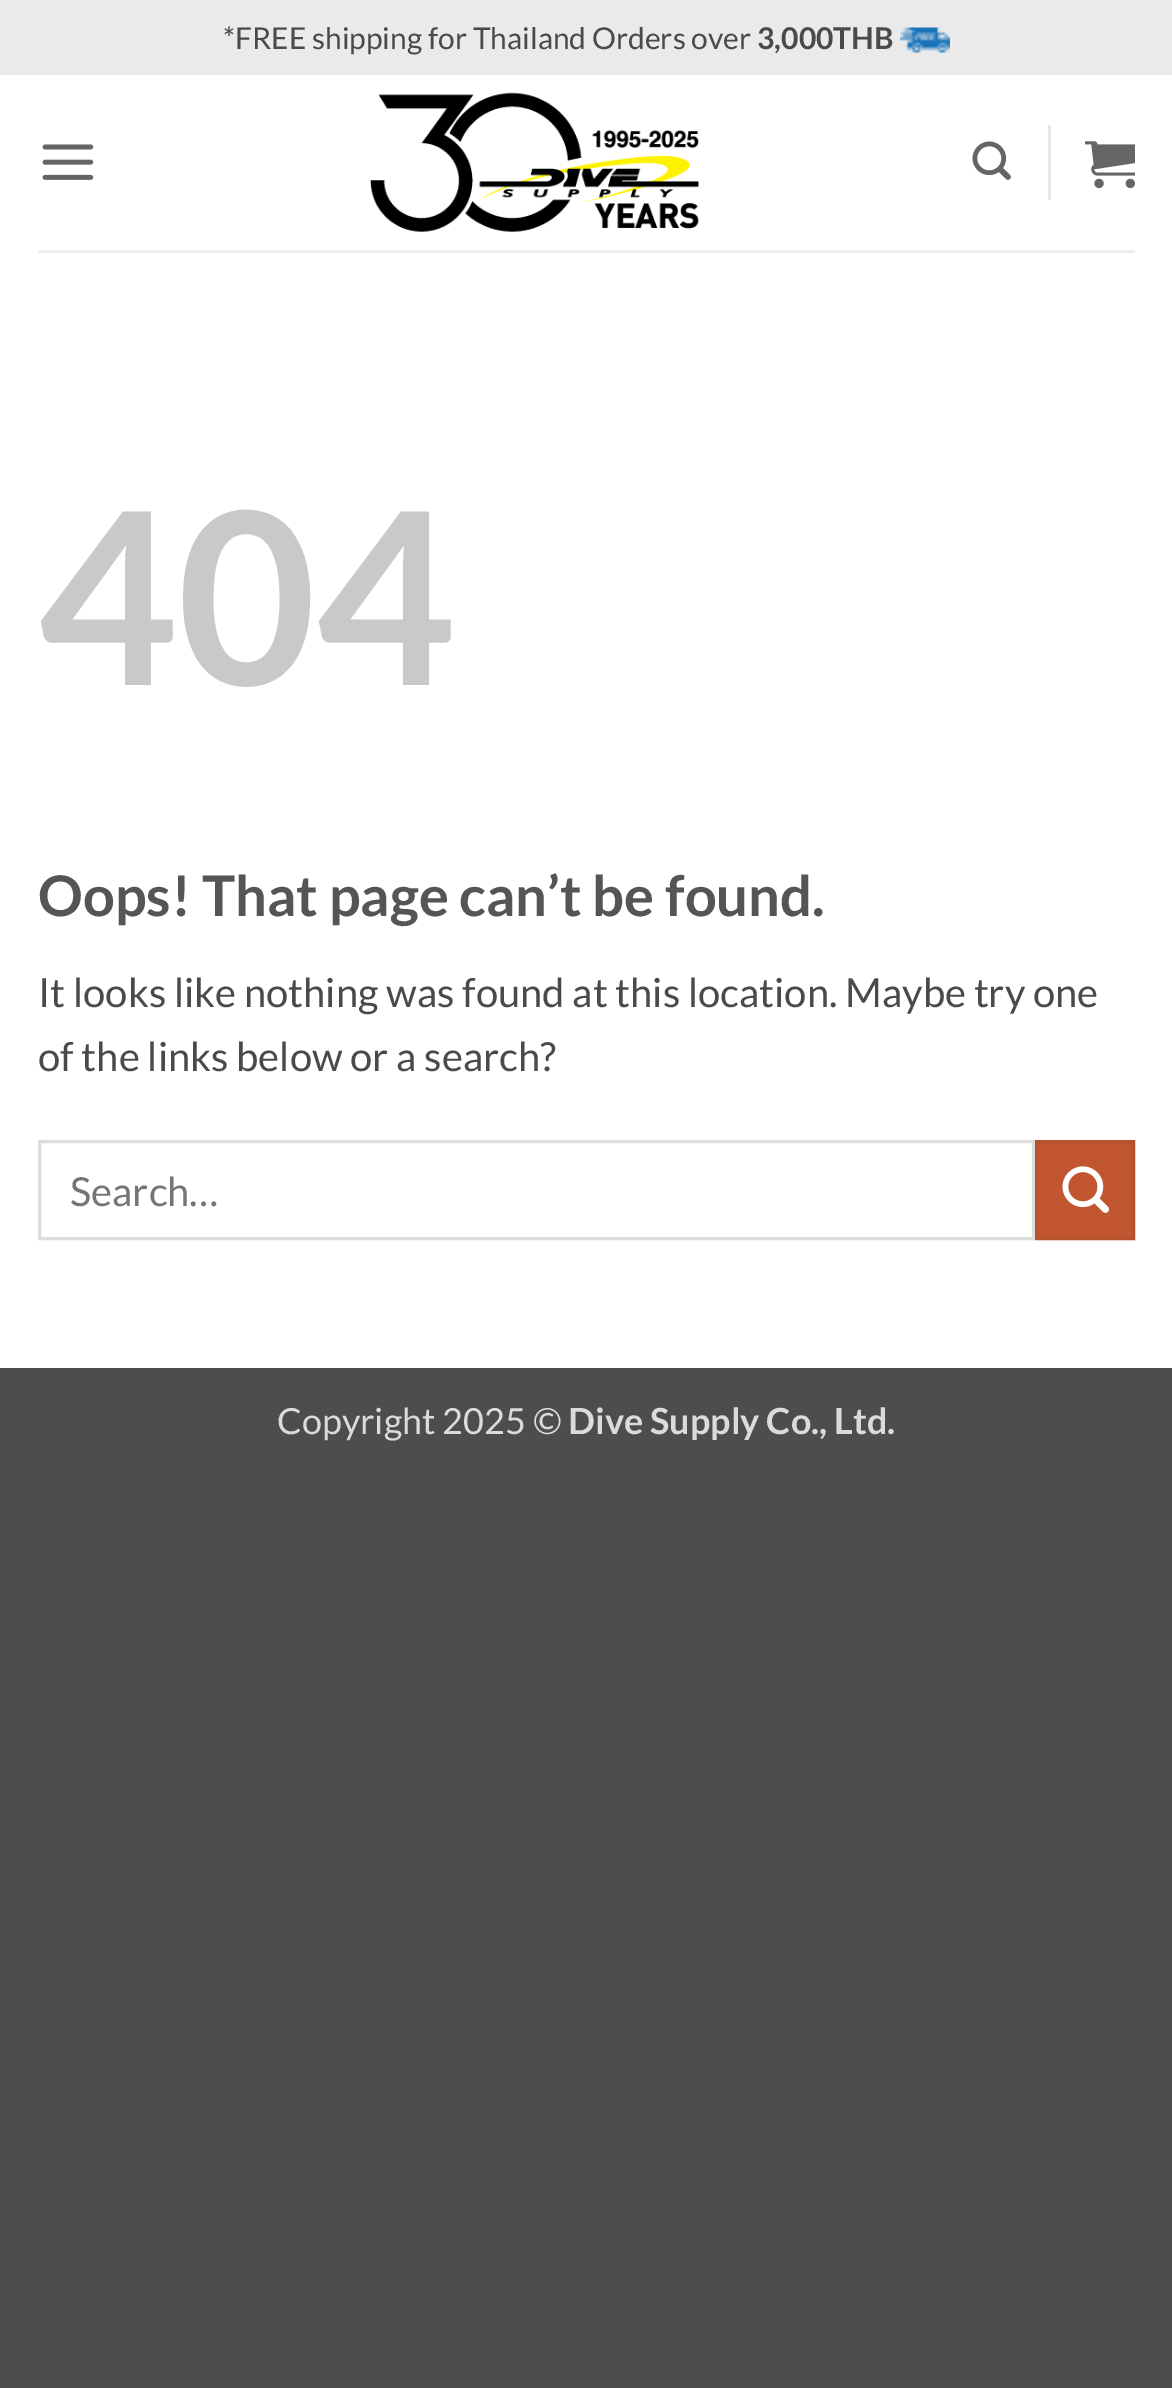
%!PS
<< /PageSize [1172 2388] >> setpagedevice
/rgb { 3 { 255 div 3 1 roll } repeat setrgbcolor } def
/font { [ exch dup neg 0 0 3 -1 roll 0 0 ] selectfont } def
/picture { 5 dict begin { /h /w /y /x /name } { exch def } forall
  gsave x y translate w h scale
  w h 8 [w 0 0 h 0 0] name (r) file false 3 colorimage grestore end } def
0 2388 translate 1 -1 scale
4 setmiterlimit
77 77 77 rgb
0 0 1172 2388 rectfill
255 255 255 rgb
0 75 1172 1293 rectfill
234 234 234 rgb
0 0 1172 75 rectfill
(img/1.rgb) 900 27 50 26 picture
(img/2.rgb) 42 144 52 36 picture
(img/3.rgb) 370 92 330 140 picture
(img/4.rgb) 972 141 39 39 picture
230 230 230 rgb
1048 125 3 75 rectfill
(img/5.rgb) 1085 141 50 48 picture
237 237 237 rgb
38 250 1097 3 rectfill
221 221 221 rgb
3 setlinewidth
39.5 1141.5 994 97 rectstroke
192 85 48 rgb
1036.5 1141.5 moveto 1133.5 1141.5 lineto 1133.5 1238.5 lineto 1036.5 1238.5 lineto closepath gsave fill grestore
182 81 46 rgb
stroke
(img/6.rgb) 1062 1166 47 47 picture
/Lato-Regular 30 font
74 74 74 rgb
223 49 moveto (*FREE shipping for Thailand Orders over) show
/Lato-Bold 30 font
757 49 moveto (3,000THB) show
/Lato-Bold 240 font
201 201 201 rgb
38 685 moveto (404) show
/Lato-Bold 56 font
85 85 85 rgb
38 916 moveto (Oops! That page can’t be found.) show
/Lato-Regular 40 font
74 74 74 rgb
38 1007 moveto (It looks like nothing was found at this location. Maybe try one) show
38 1071 moveto (of the links below or a search?) show
117 117 117 rgb
70 1206 moveto (Search…) show
/Lato-Regular 36 font
219 219 219 rgb
277 1434 moveto (Copyright 2025 ©) show
/Lato-Bold 36 font
568 1434 moveto (Dive Supply Co., Ltd.) show
showpage
